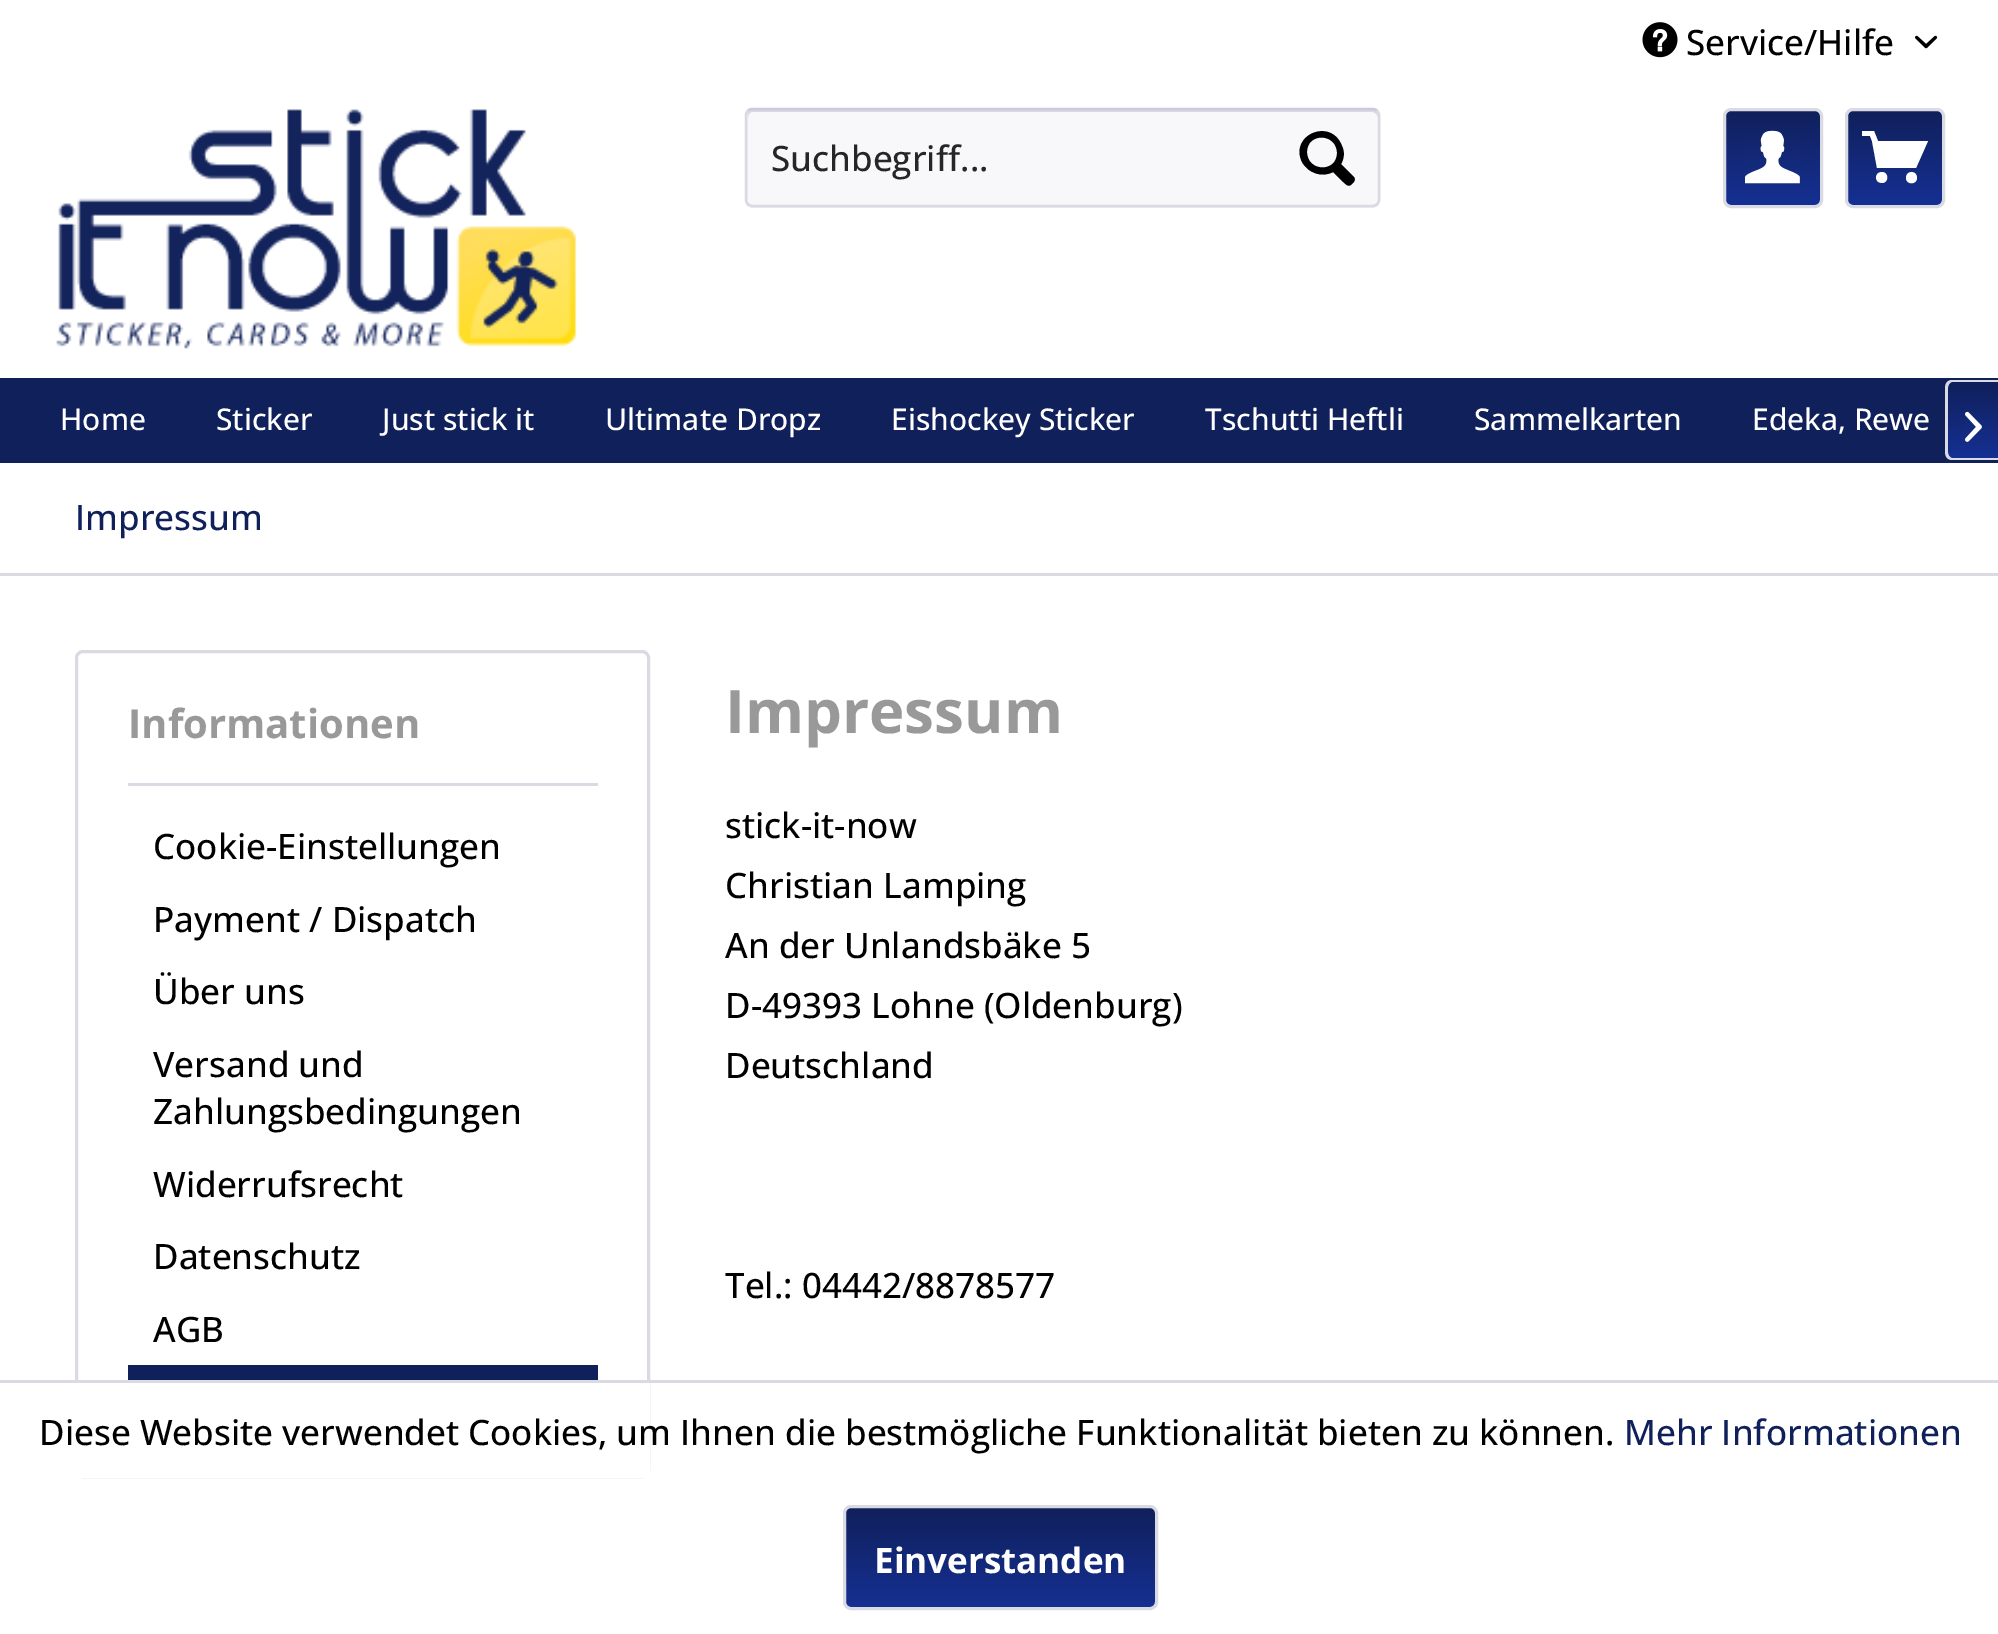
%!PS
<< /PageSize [1998 1634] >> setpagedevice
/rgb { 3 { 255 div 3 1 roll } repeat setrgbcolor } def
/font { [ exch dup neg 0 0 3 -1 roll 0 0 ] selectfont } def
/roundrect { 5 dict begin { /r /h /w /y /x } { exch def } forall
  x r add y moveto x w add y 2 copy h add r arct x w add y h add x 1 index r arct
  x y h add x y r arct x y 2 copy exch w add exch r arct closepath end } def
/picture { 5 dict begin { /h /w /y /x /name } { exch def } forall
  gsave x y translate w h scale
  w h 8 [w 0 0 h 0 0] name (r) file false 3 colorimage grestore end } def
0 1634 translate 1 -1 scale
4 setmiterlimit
255 255 255 rgb
0 0 1998 1634 rectfill
(img/1.rgb) 1642 22 36 36 picture
(img/2.rgb) 1915 35 23 14 picture
(img/3.rgb) 56 109 521 240 picture
248 248 250 rgb
745 108 635 100 8 roundrect fill
218 218 229 rgb
752 112 moveto 1372 112 lineto 1375 112 1378 115 1378 118 curveto 1378 115 lineto 1378 112 1376 110 1373 110 curveto 753 110 lineto 750 110 748 112 748 115 curveto 748 118 lineto 748 115 750 112 752 112 curveto closepath fill
203 203 219 rgb
2.5 setlinewidth
748 110.5 moveto 749.5 109.5 751 109 752.5 109 curveto 1372.5 109 lineto 1374 109 1375.5 109.5 1377 110.5 curveto stroke
218 218 229 rgb
1377 110.5 moveto 1378 112 1379 113.5 1379 115 curveto 1379 200 lineto 1379 201.5 1378 203 1377 204.5 curveto 1375.5 205.5 1374 206 1372.5 206 curveto 752.5 206 lineto 751 206 749.5 205.5 748 204.5 curveto 747 203 746 201.5 746 200 curveto 746 115 lineto 746 113.5 747 112 748 110.5 curveto stroke
0 0 0 rgb
1354 177 moveto 1341 164 lineto 1344 159 1345 152 1342 146 curveto 1331 117 1289 135 1302 162 curveto 1308 173 1322 178 1333 172 curveto 1342 181 lineto 1346 184 1348 188 1352 184 curveto 1354 182 1356 180 1354 177 curveto closepath 1307 152 moveto 1307 132 1337 133 1337 153 curveto 1337 173 1307 172 1307 152 curveto closepath fill
gsave 1725 110 95 95 5 roundrect clip newpath
<< /ShadingType 2 /ColorSpace /DeviceRGB /Coords [1773 110 1773 205] /Extend [true true] /Function << /FunctionType 2 /Domain [0 1] /C0 [0.063 0.125 0.357] /C1 [0.082 0.188 0.576] /N 1 >> >> shfill grestore
218 218 229 rgb
3 setlinewidth
1724.5 109.5 97 97 6.5 roundrect stroke
(img/4.rgb) 1745 130 55 54 picture
gsave 1848 110 95 95 5 roundrect clip newpath
<< /ShadingType 2 /ColorSpace /DeviceRGB /Coords [1895 110 1895 205] /Extend [true true] /Function << /FunctionType 2 /Domain [0 1] /C0 [0.063 0.125 0.357] /C1 [0.082 0.188 0.576] /N 1 >> >> shfill grestore
1846.5 109.5 97 97 6.5 roundrect stroke
255 255 255 rgb
1877 168 moveto 1916 168 lineto 1928 141 lineto 1878 141 lineto 1874 131 lineto 1862 131 lineto 1862 136 lineto 1870 136 lineto 1872 141 lineto closepath 1882 172 moveto 1874 172 1874 183 1882 183 curveto 1889 183 1889 172 1882 172 curveto closepath 1917 178 moveto 1917 185 1906 185 1906 178 curveto 1906 170 1917 170 1917 178 curveto closepath fill
16 32 91 rgb
0 378 1998 85 rectfill
gsave 1953 383 moveto 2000 383 lineto 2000 458 lineto 1953 458 lineto 1950 458 1948 456 1948 453 curveto 1948 388 lineto 1948 385 1950 383 1953 383 curveto closepath clip newpath
<< /ShadingType 2 /ColorSpace /DeviceRGB /Coords [1974 383 1974 458] /Extend [true true] /Function << /FunctionType 2 /Domain [0 1] /C0 [0.063 0.125 0.357] /C1 [0.082 0.188 0.576] /N 1 >> >> shfill grestore
218 218 229 rgb
1952 380 moveto 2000 380 lineto 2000 460 lineto 1952 460 lineto 1948 460 1945 457 1945 452 curveto 1945 388 lineto 1945 383 1948 380 1952 380 curveto closepath 1952 382 moveto 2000 382 lineto 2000 458 lineto 1952 458 lineto 1950 458 1948 455 1948 452 curveto 1948 388 lineto 1948 385 1950 382 1952 382 curveto closepath eofill
(img/5.rgb) 1965 411 17 31 picture
0 573 1998 3 rectfill
76.5 651.5 572 825 6.5 roundrect stroke
[
  [128 783 470 3 218 218 229]
  [128 1365 470 15 16 32 91]
  [75 1383 575 95 255 255 255]
  [0 1380 1998 3 218 218 229]
] { aload pop rgb rectfill } forall
gsave 845 1508 310 100 5 roundrect clip newpath
<< /ShadingType 2 /ColorSpace /DeviceRGB /Coords [1000 1508 1000 1608] /Extend [true true] /Function << /FunctionType 2 /Domain [0 1] /C0 [0.063 0.125 0.357] /C1 [0.082 0.188 0.576] /N 1 >> >> shfill grestore
844.5 1506.5 312 102 6.5 roundrect stroke
/OpenSans-Medium 35 font
0 0 0 rgb
1686 55 moveto (Service/Hilfe) show
38 38 38 rgb
771 171 moveto (Suchbegriff...) show
/OpenSans-Medium 30 font
255 255 255 rgb
[
  [(Home) 60 430]
  [(Sticker) 216 430]
  [(Just stick it) 382 430]
  [(Ultimate Dropz) 605 430]
  [(Eishockey Sticker) 891 430]
  [(Tschutti Heftli) 1205 430]
  [(Sammelkarten) 1474 430]
  [(Edeka, Rewe) 1752 430]
] { aload pop moveto show } forall
/OpenSans-Medium 35 font
16 32 91 rgb
75 530 moveto (Impressum) show
/OpenSans-Bold 40 font
153 153 153 rgb
128 738 moveto (Informationen) show
/OpenSans-Medium 35 font
0 0 0 rgb
[
  [(Cookie-Einstellungen) 153 859]
  [(Payment / Dispatch) 153 932]
  [(Über uns) 153 1004]
  [(Versand und) 153 1077]
  [(Zahlungsbedingungen) 153 1124]
  [(Widerrufsrecht) 153 1197]
  [(Datenschutz) 153 1269]
  [(AGB) 153 1342]
] { aload pop moveto show } forall
/OpenSans-Bold 60 font
153 153 153 rgb
725 733 moveto (Impressum) show
/OpenSans-Medium 35 font
0 0 0 rgb
[
  [(stick-it-now) 725 838]
  [(Christian Lamping) 725 898]
  [(An der Unlandsbäke 5) 725 958]
  [(D-49393 Lohne \(Oldenburg\)) 725 1018]
  [(Deutschland) 725 1078]
  [(Tel.: 04442/8878577) 725 1298]
  [(Diese Website verwendet Cookies, um Ihnen die bestmögliche Funktionalität bieten zu können.) 39 1445]
] { aload pop moveto show } forall
16 32 91 rgb
1624 1445 moveto (Mehr Informationen) show
/OpenSans-Bold 35 font
255 255 255 rgb
874 1573 moveto (Einverstanden) show
showpage
